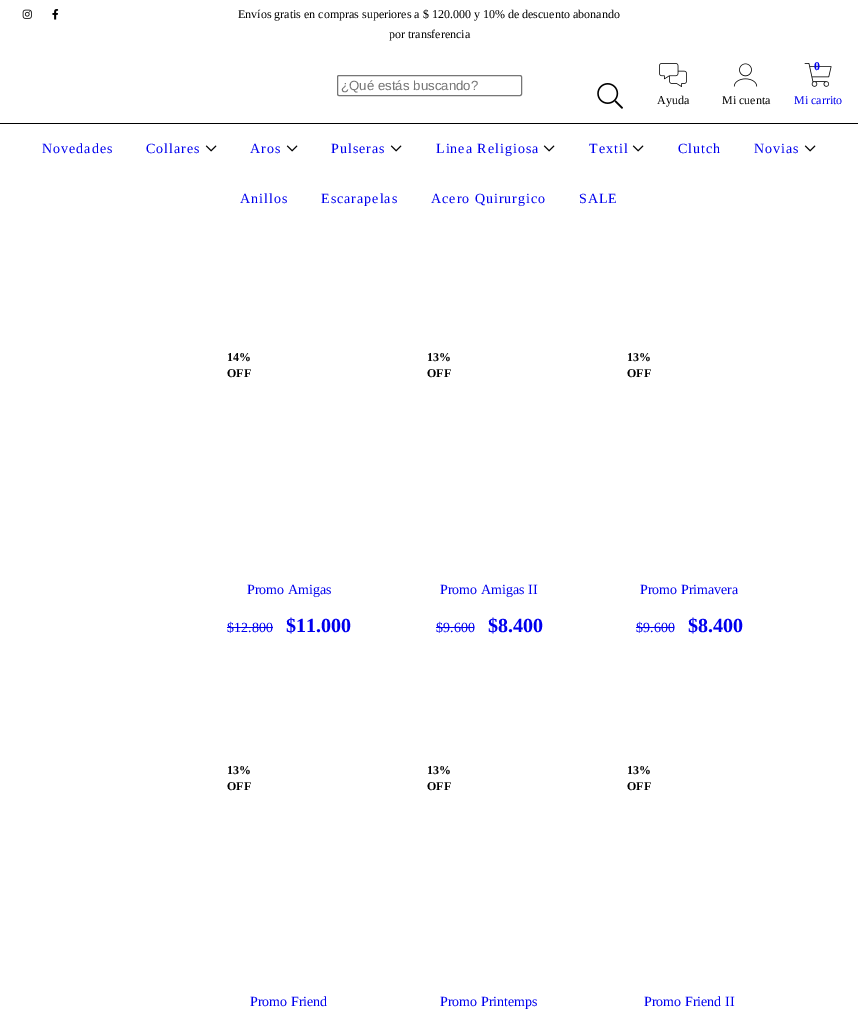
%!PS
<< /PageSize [858 1026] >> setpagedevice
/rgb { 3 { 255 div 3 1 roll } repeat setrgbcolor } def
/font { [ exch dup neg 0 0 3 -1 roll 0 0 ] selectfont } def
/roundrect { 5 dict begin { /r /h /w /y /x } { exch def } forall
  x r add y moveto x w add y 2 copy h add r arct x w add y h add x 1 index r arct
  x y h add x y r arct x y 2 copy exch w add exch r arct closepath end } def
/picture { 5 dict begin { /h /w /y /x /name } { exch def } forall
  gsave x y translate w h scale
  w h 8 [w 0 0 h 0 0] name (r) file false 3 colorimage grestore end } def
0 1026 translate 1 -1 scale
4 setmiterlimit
255 255 255 rgb
0 0 858 1026 rectfill
(img/1.rgb) 22 9 10 10 picture
(img/2.rgb) 52 9 7 11 picture
118 118 118 rgb
337.5 75.5 184 20 1.5 roundrect stroke
(img/3.rgb) 597 83 26 26 picture
(img/4.rgb) 659 63 28 24 picture
(img/5.rgb) 733 63 25 24 picture
(img/6.rgb) 804 63 28 24 picture
0 0 0 rgb
0 123 858 1 rectfill
(img/7.rgb) 205 145 12 7 picture
(img/7.rgb) 286 145 12 7 picture
(img/7.rgb) 390 145 12 7 picture
(img/7.rgb) 543 145 12 7 picture
(img/7.rgb) 632 145 12 7 picture
(img/7.rgb) 804 145 12 7 picture
[
  [227 627 46 1 0 0 238]
  [436 627 38 1 0 0 238]
  [636 627 38 1 0 0 238]
] { aload pop rgb rectfill } forall
/LiberationSerif-Regular 12 font
0 0 0 rgb
238 18 moveto (Envíos gratis en compras superiores a $ 120.000 y 10% de descuento abonando) show
389 38 moveto (por transferencia) show
/LiberationSans-Regular 13.25 font
117 117 117 rgb
341 90 moveto (¿Qué estás buscando?) show
/LiberationSerif-Regular 12 font
0 0 0 rgb
657 104 moveto (Ayuda) show
722 104 moveto (Mi cuenta) show
/LiberationSerif-Bold 12 font
0 0 238 rgb
814 70 moveto (0) show
/LiberationSerif-Regular 12 font
794 104 moveto (Mi carrito) show
/LiberationSerif-Regular 14 font
42 153 moveto 1 0 (Novedades) ashow
146 153 moveto 1 0 (Collares) ashow
250 153 moveto 1 0 (Aros) ashow
331 153 moveto 1 0 (Pulseras) ashow
436 153 moveto 1 0 (Linea Religiosa) ashow
589 153 moveto 1 0 (Textil) ashow
678 153 moveto 1 0 (Clutch) ashow
754 153 moveto 1 0 (Novias) ashow
240 203 moveto 1 0 (Anillos) ashow
321 203 moveto 1 0 (Escarapelas) ashow
431 203 moveto 1 0 (Acero Quirurgico) ashow
579 203 moveto 1 0 (SALE) ashow
/LiberationSerif-Bold 12 font
0 0 0 rgb
227 361 moveto (14%) show
227 377 moveto (OFF) show
/LiberationSerif-Regular 14 font
0 0 238 rgb
247 594 moveto (Promo Amigas) show
227 632 moveto ($12.800) show
/LiberationSerif-Bold 20 font
286 632 moveto ($11.000) show
/LiberationSerif-Bold 12 font
0 0 0 rgb
427 361 moveto (13%) show
427 377 moveto (OFF) show
/LiberationSerif-Regular 14 font
0 0 238 rgb
440 594 moveto (Promo Amigas II) show
436 632 moveto ($9.600) show
/LiberationSerif-Bold 20 font
488 632 moveto ($8.400) show
/LiberationSerif-Bold 12 font
0 0 0 rgb
627 361 moveto (13%) show
627 377 moveto (OFF) show
/LiberationSerif-Regular 14 font
0 0 238 rgb
640 594 moveto (Promo Primavera) show
636 632 moveto ($9.600) show
/LiberationSerif-Bold 20 font
688 632 moveto ($8.400) show
/LiberationSerif-Bold 12 font
0 0 0 rgb
227 774 moveto (13%) show
227 790 moveto (OFF) show
/LiberationSerif-Regular 14 font
0 0 238 rgb
250 1006 moveto (Promo Friend) show
/LiberationSerif-Bold 12 font
0 0 0 rgb
427 774 moveto (13%) show
427 790 moveto (OFF) show
/LiberationSerif-Regular 14 font
0 0 238 rgb
440 1006 moveto (Promo Printemps) show
/LiberationSerif-Bold 12 font
0 0 0 rgb
627 774 moveto (13%) show
627 790 moveto (OFF) show
/LiberationSerif-Regular 14 font
0 0 238 rgb
644 1006 moveto (Promo Friend II) show
showpage
